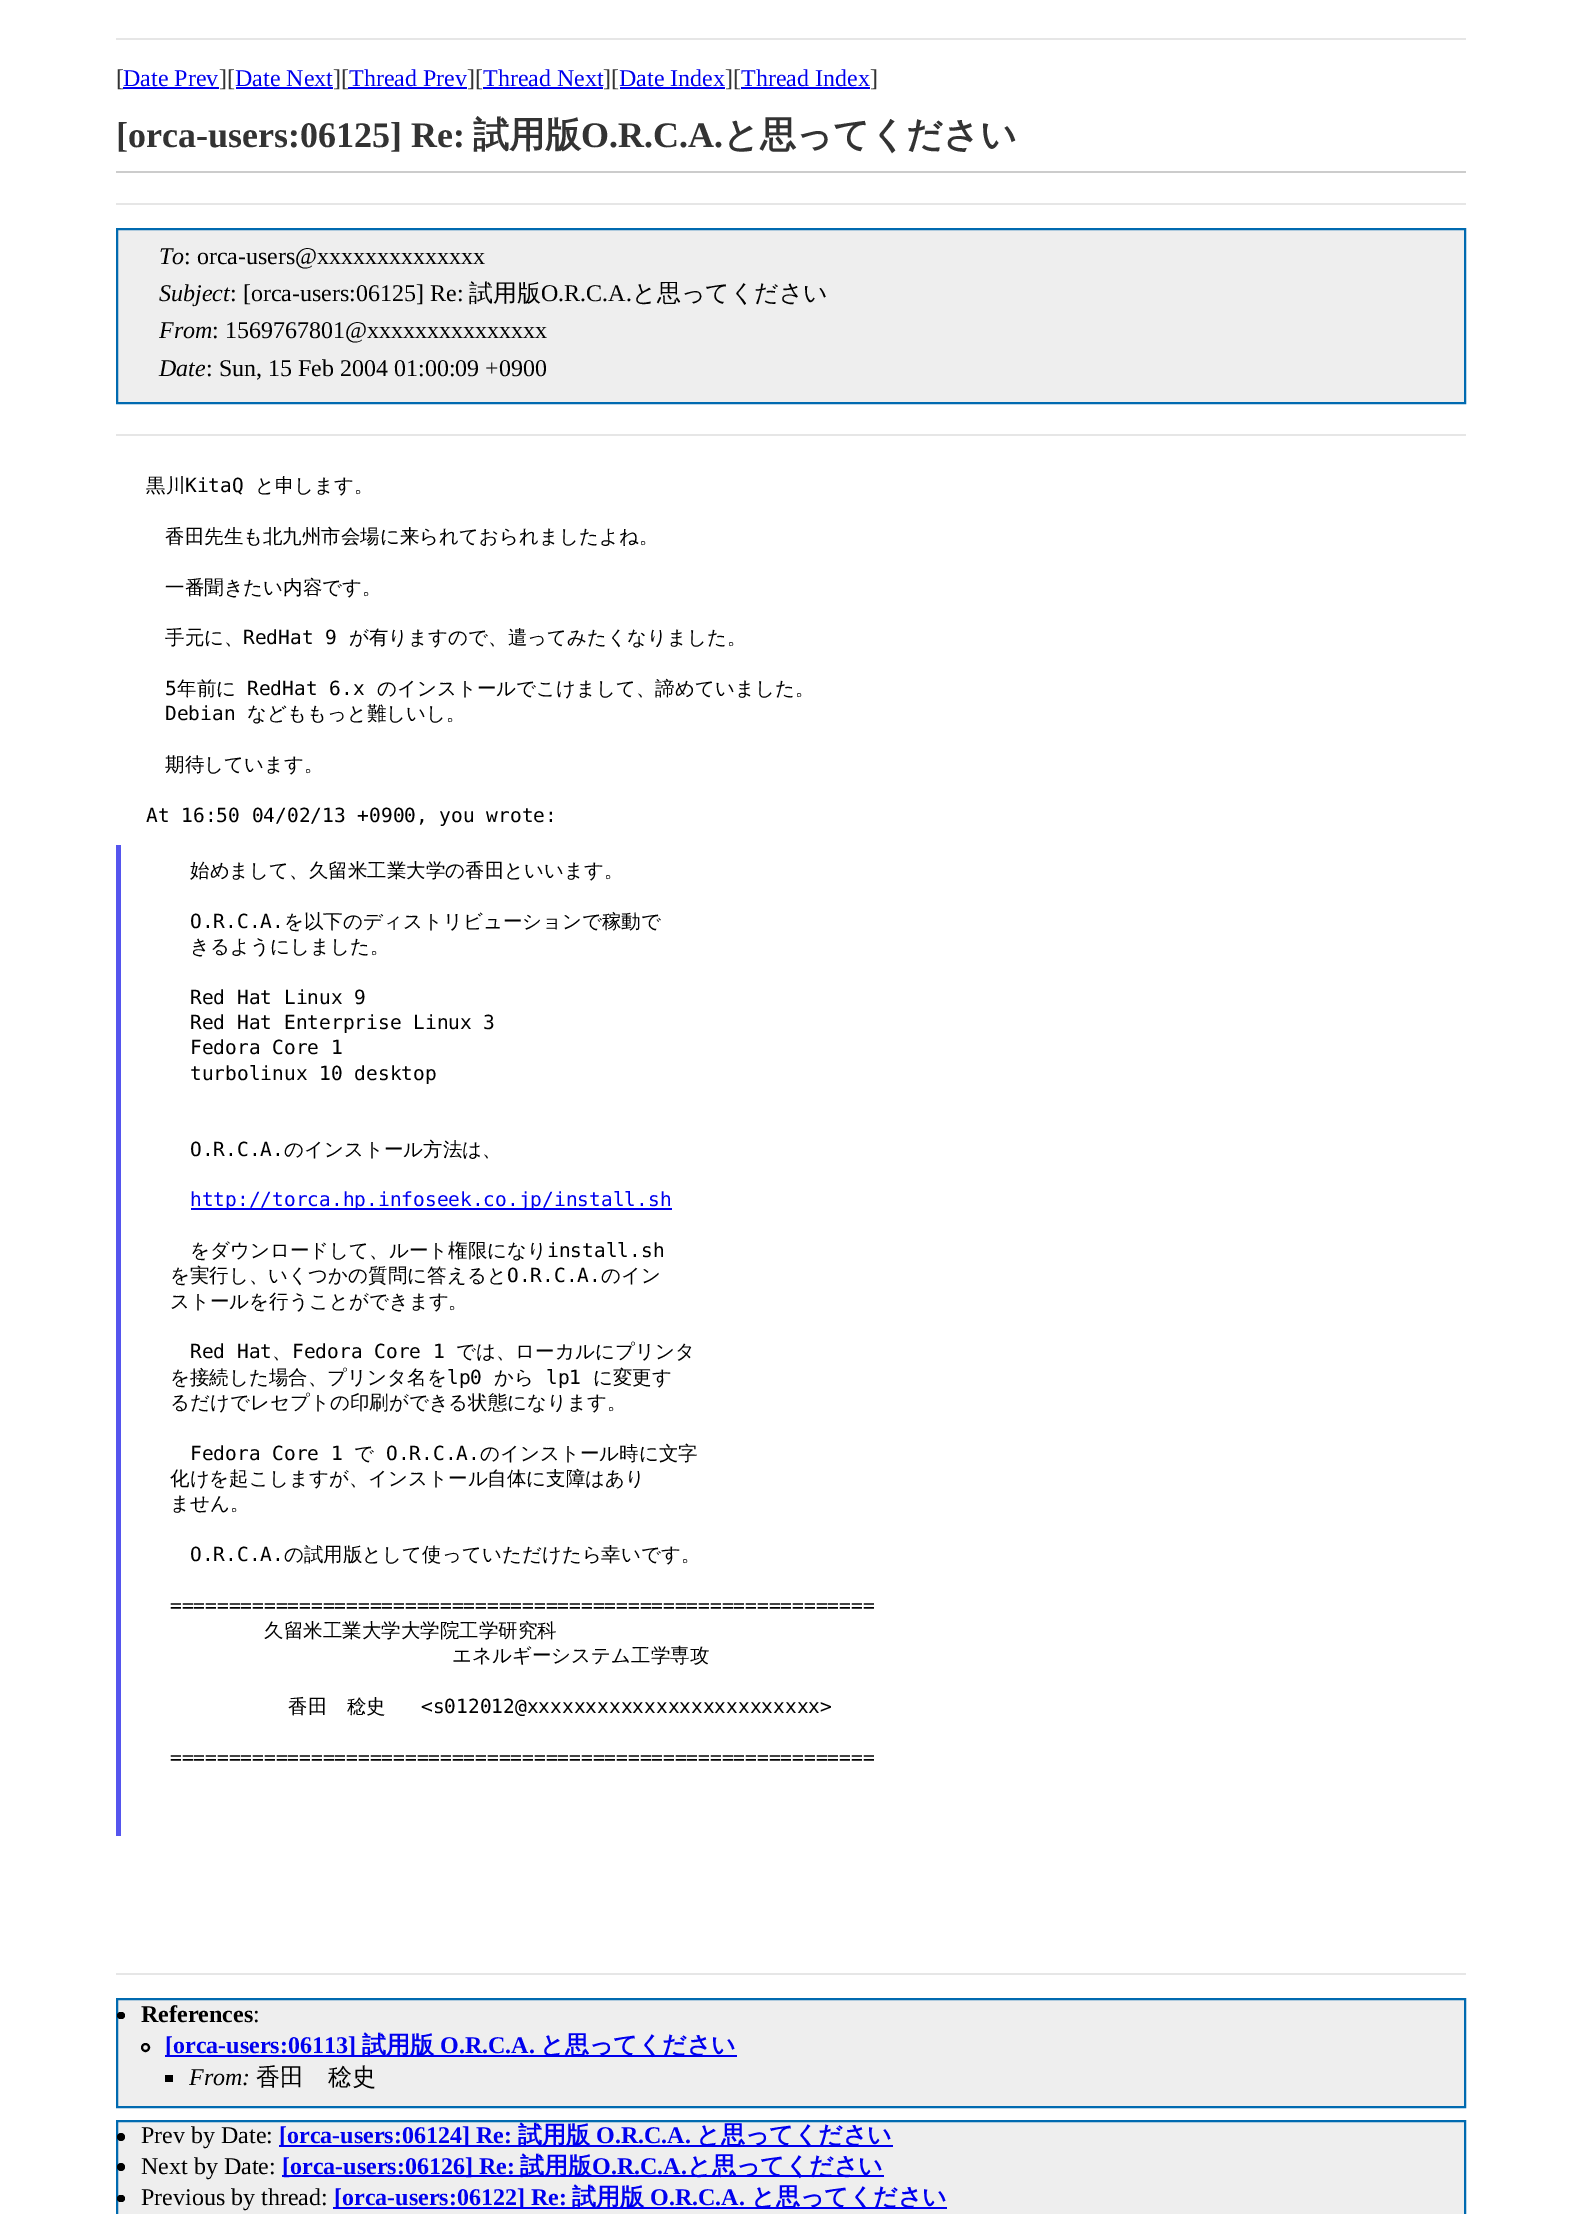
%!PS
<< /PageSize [1580 2214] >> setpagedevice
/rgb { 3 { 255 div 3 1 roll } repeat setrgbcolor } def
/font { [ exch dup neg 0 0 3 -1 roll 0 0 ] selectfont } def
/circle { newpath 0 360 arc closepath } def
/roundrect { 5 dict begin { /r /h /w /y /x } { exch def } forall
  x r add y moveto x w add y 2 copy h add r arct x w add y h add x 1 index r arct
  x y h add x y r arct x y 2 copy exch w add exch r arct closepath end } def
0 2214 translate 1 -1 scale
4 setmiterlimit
255 255 255 rgb
0 0 1580 2214 rectfill
[
  [116 38 1350 2 230 230 230]
  [123 87 96 2 0 0 238]
  [236 87 97 2 0 0 238]
  [348 87 119 2 0 0 238]
  [483 87 120 2 0 0 238]
  [620 87 105 2 0 0 238]
  [741 87 129 2 0 0 238]
  [116 171 1350 2 204 204 204]
  [116 203 1350 2 230 230 230]
] { aload pop rgb rectfill } forall
238 238 238 rgb
117 229 moveto 1465 229 lineto 1465 403 lineto 117 403 lineto closepath gsave fill grestore
0 106 176 rgb
2 setlinewidth
stroke
[
  [116 434 1350 2 230 230 230]
  [116 845 5 991 85 85 238]
  [191 1208 481 2 0 0 238]
  [116 1973 1350 2 230 230 230]
] { aload pop rgb rectfill } forall
238 238 238 rgb
117 1999 moveto 1465 1999 lineto 1465 2107 lineto 117 2107 lineto closepath gsave fill grestore
0 106 176 rgb
stroke
0 0 0 rgb
117 2012 8 7 3.5 roundrect fill
145.5 2047.5 3.5 circle stroke
0 0 238 rgb
165 2055 572 2 rectfill
0 0 0 rgb
165 2075 8 7 rectfill
238 238 238 rgb
117 2121 moveto 1465 2121 lineto 1465 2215 lineto 117 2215 lineto closepath gsave fill grestore
0 106 176 rgb
stroke
0 0 0 rgb
121 2137 4 circle fill
0 0 238 rgb
279 2145 614 2 rectfill
0 0 0 rgb
121 2167 4 circle fill
0 0 238 rgb
282 2175 602 2 rectfill
0 0 0 rgb
117 2195 8 7 3.5 roundrect fill
0 0 238 rgb
333 2207 614 2 rectfill
/LiberationSerif-Regular 24 font
51 51 51 rgb
116 86 moveto ([) show
0 0 238 rgb
123 86 moveto (Date Prev) show
51 51 51 rgb
219 86 moveto (][) show
0 0 238 rgb
235 86 moveto (Date Next) show
51 51 51 rgb
333 86 moveto (][) show
0 0 238 rgb
349 86 moveto (Thread Prev) show
51 51 51 rgb
467 86 moveto (][) show
0 0 238 rgb
483 86 moveto (Thread Next) show
51 51 51 rgb
603 86 moveto (][) show
0 0 238 rgb
619 86 moveto (Date Index) show
51 51 51 rgb
725 86 moveto (][) show
0 0 238 rgb
741 86 moveto (Thread Index) show
51 51 51 rgb
870 86 moveto (]) show
/LiberationSerif-Bold 36 font
116 147 moveto ([orca-users:06125] Re:) show
/WenQuanYiZenHei-Bold 36 font
473 147 moveto (試用版) show
/LiberationSerif-Bold 36 font
581 147 moveto (O.R.C.A.) show
/WenQuanYiZenHei-Bold 36 font
723 147 moveto (と思ってください) show
/LiberationSerif-Italic 24 font
0 0 0 rgb
159 264 moveto (To) show
/LiberationSerif-Regular 24 font
184 264 moveto (: orca-users@xxxxxxxxxxxxxx) show
/LiberationSerif-Italic 24 font
159 301 moveto (Subject) show
/LiberationSerif-Regular 24 font
230 301 moveto (: [orca-users:06125] Re:) show
/WenQuanYiZenHei-Medium 24 font
469 301 moveto (試用版) show
/LiberationSerif-Regular 24 font
541 301 moveto (O.R.C.A.) show
/WenQuanYiZenHei-Medium 24 font
632 301 moveto (と思ってください) show
/LiberationSerif-Italic 24 font
159 338 moveto (From) show
/LiberationSerif-Regular 24 font
212 338 moveto (: 1569767801@xxxxxxxxxxxxxxx) show
/LiberationSerif-Italic 24 font
159 376 moveto (Date) show
/LiberationSerif-Regular 24 font
206 376 moveto (: Sun, 15 Feb 2004 01:00:09 +0900) show
/WenQuanYiZenHei-Medium 19.5 font
146 492 moveto (黒川) show
/DejaVuSansMono-Regular 19.5 font
185 492 moveto (KitaQ) show
/WenQuanYiZenHei-Medium 19.5 font
[
  [(と申します。) 255 492]
  [(香田先生も北九州市会場に来られておられましたよね。) 165 543]
  [(一番聞きたい内容です。) 165 594]
  [(手元に、) 165 644]
] { aload pop moveto show } forall
/DejaVuSansMono-Regular 19.5 font
243 644 moveto (RedHat 9) show
/WenQuanYiZenHei-Medium 19.5 font
349 644 moveto (が有りますので、遣ってみたくなりました。) show
/DejaVuSansMono-Regular 19.5 font
165 695 moveto (5) show
/WenQuanYiZenHei-Medium 19.5 font
177 695 moveto (年前に) show
/DejaVuSansMono-Regular 19.5 font
247 695 moveto (RedHat 6.x) show
/WenQuanYiZenHei-Medium 19.5 font
377 695 moveto (のインストールでこけまして、諦めていました。) show
/DejaVuSansMono-Regular 19.5 font
165 720 moveto (Debian) show
/WenQuanYiZenHei-Medium 19.5 font
247 720 moveto (などももっと難しいし。) show
165 771 moveto (期待しています。) show
/DejaVuSansMono-Regular 19.5 font
146 822 moveto (At 16:50 04/02/13 +0900, you wrote:) show
/WenQuanYiZenHei-Medium 19.5 font
190 877 moveto (始めまして、久留米工業大学の香田といいます。) show
/DejaVuSansMono-Regular 19.5 font
190 928 moveto (O.R.C.A.) show
/WenQuanYiZenHei-Medium 19.5 font
284 928 moveto (を以下のディストリビューションで稼動で) show
190 953 moveto (きるようにしました。) show
/DejaVuSansMono-Regular 19.5 font
[
  [(Red Hat Linux 9) 190 1004]
  [(Red Hat Enterprise Linux 3) 190 1029]
  [(Fedora Core 1) 190 1054]
  [(turbolinux 10 desktop) 190 1080]
  [(O.R.C.A.) 190 1156]
] { aload pop moveto show } forall
/WenQuanYiZenHei-Medium 19.5 font
284 1156 moveto (のインストール方法は、) show
/DejaVuSansMono-Regular 19.5 font
0 0 238 rgb
190 1206 moveto (http://torca.hp.infoseek.co.jp/install.sh) show
/WenQuanYiZenHei-Medium 19.5 font
0 0 0 rgb
190 1257 moveto (をダウンロードして、ルート権限になり) show
/DejaVuSansMono-Regular 19.5 font
547 1257 moveto (install.sh) show
/WenQuanYiZenHei-Medium 19.5 font
170 1282 moveto (を実行し、いくつかの質問に答えると) show
/DejaVuSansMono-Regular 19.5 font
507 1282 moveto (O.R.C.A.) show
/WenQuanYiZenHei-Medium 19.5 font
601 1282 moveto (のイン) show
170 1308 moveto (ストールを行うことができます。) show
/DejaVuSansMono-Regular 19.5 font
190 1358 moveto (Red Hat) show
/WenQuanYiZenHei-Medium 19.5 font
272 1358 moveto (、) show
/DejaVuSansMono-Regular 19.5 font
292 1358 moveto (Fedora Core 1) show
/WenQuanYiZenHei-Medium 19.5 font
456 1358 moveto (では、ローカルにプリンタ) show
170 1384 moveto (を接続した場合、プリンタ名を) show
/DejaVuSansMono-Regular 19.5 font
447 1384 moveto (lp0) show
/WenQuanYiZenHei-Medium 19.5 font
494 1384 moveto (から) show
/DejaVuSansMono-Regular 19.5 font
546 1384 moveto (lp1) show
/WenQuanYiZenHei-Medium 19.5 font
593 1384 moveto (に変更す) show
170 1409 moveto (るだけでレセプトの印刷ができる状態になります。) show
/DejaVuSansMono-Regular 19.5 font
190 1460 moveto (Fedora Core 1) show
/WenQuanYiZenHei-Medium 19.5 font
354 1460 moveto (で) show
/DejaVuSansMono-Regular 19.5 font
386 1460 moveto (O.R.C.A.) show
/WenQuanYiZenHei-Medium 19.5 font
[
  [(のインストール時に文字) 480 1460]
  [(化けを起こしますが、インストール自体に支障はあり) 170 1485]
  [(ません。) 170 1510]
] { aload pop moveto show } forall
/DejaVuSansMono-Regular 19.5 font
190 1561 moveto (O.R.C.A.) show
/WenQuanYiZenHei-Medium 19.5 font
284 1561 moveto (の試用版として使っていただけたら幸いです。) show
/DejaVuSansMono-Regular 19.5 font
170 1612 moveto (============================================================) show
/WenQuanYiZenHei-Medium 19.5 font
[
  [(久留米工業大学大学院工学研究科) 264 1637]
  [(エネルギーシステム工学専攻) 452 1662]
  [(香田　稔史) 288 1713]
] { aload pop moveto show } forall
/DejaVuSansMono-Regular 19.5 font
421 1713 moveto (<s012012@xxxxxxxxxxxxxxxxxxxxxxxxx>) show
170 1764 moveto (============================================================) show
/LiberationSerif-Bold 24 font
141 2022 moveto (References) show
/LiberationSerif-Regular 24 font
253 2022 moveto (:) show
/LiberationSerif-Bold 24 font
0 0 238 rgb
165 2053 moveto ([orca-users:06113]) show
/WenQuanYiZenHei-Bold 24 font
362 2053 moveto (試用版) show
/LiberationSerif-Bold 24 font
440 2053 moveto (O.R.C.A.) show
/WenQuanYiZenHei-Bold 24 font
540 2053 moveto (と思ってください) show
/LiberationSerif-Italic 24 font
0 0 0 rgb
189 2085 moveto (From:) show
/WenQuanYiZenHei-Medium 24 font
256 2085 moveto (香田　稔史) show
/LiberationSerif-Regular 24 font
141 2143 moveto (Prev by Date:) show
/LiberationSerif-Bold 24 font
0 0 238 rgb
279 2143 moveto ([orca-users:06124] Re:) show
/WenQuanYiZenHei-Bold 24 font
518 2143 moveto (試用版) show
/LiberationSerif-Bold 24 font
596 2143 moveto (O.R.C.A.) show
/WenQuanYiZenHei-Bold 24 font
696 2143 moveto (と思ってください) show
/LiberationSerif-Regular 24 font
0 0 0 rgb
141 2174 moveto (Next by Date:) show
/LiberationSerif-Bold 24 font
0 0 238 rgb
282 2174 moveto ([orca-users:06126] Re:) show
/WenQuanYiZenHei-Bold 24 font
520 2174 moveto (試用版) show
/LiberationSerif-Bold 24 font
592 2174 moveto (O.R.C.A.) show
/WenQuanYiZenHei-Bold 24 font
687 2174 moveto (と思ってください) show
/LiberationSerif-Regular 24 font
0 0 0 rgb
141 2205 moveto (Previous by thread:) show
/LiberationSerif-Bold 24 font
0 0 238 rgb
334 2205 moveto ([orca-users:06122] Re:) show
/WenQuanYiZenHei-Bold 24 font
572 2205 moveto (試用版) show
/LiberationSerif-Bold 24 font
650 2205 moveto (O.R.C.A.) show
/WenQuanYiZenHei-Bold 24 font
751 2205 moveto (と思ってください) show
showpage
